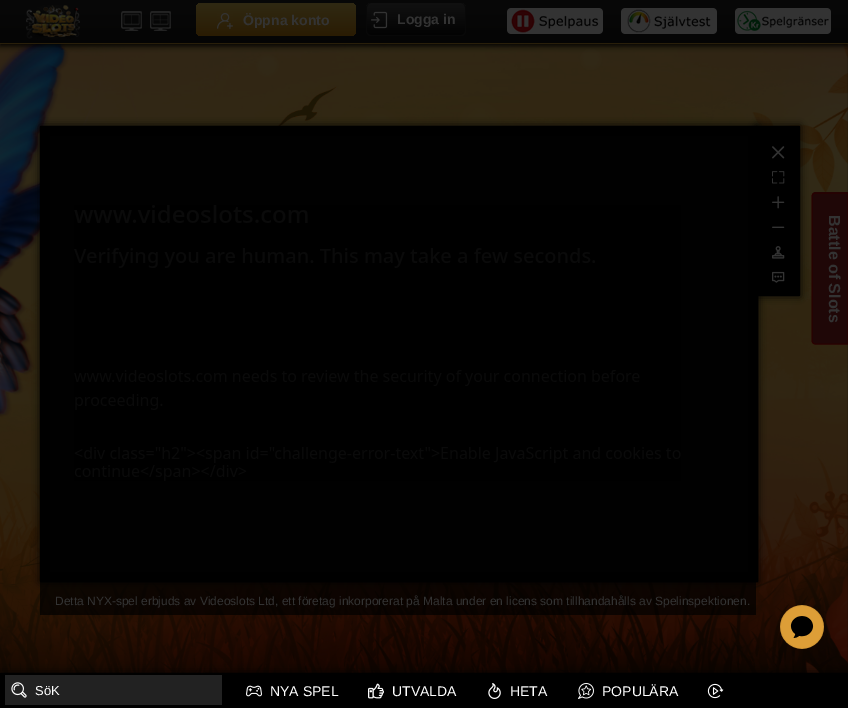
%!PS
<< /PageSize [848 708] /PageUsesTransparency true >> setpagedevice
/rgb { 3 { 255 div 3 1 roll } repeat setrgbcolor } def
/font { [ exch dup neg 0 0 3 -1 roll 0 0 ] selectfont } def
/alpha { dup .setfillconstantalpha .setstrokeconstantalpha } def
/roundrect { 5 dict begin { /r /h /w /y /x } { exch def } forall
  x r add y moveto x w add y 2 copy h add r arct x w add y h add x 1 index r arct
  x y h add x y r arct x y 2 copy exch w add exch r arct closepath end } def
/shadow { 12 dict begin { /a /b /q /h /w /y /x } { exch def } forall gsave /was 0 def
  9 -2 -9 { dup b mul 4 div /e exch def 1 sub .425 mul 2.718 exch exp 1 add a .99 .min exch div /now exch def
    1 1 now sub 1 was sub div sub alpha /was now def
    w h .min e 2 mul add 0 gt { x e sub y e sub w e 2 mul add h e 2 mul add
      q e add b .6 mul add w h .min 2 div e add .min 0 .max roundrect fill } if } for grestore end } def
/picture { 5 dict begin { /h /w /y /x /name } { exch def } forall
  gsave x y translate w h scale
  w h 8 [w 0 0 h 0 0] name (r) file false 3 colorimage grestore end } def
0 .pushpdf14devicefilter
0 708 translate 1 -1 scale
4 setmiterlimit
255 255 255 rgb
0 0 848 708 rectfill
(img/10.rgb) 0 44 848 629 picture
0 0 0 rgb
0 2 848 44 0 3 1 shadow
(img/1.rgb) 0 0 848 43 picture
41 31 10 rgb
0 43 848 1 rectfill
(img/2.rgb) 26 5 54 34 picture
(img/3.rgb) 121 11 21 20 picture
(img/4.rgb) 150 11 21 20 picture
gsave 196 3 160 33 5 roundrect clip newpath
<< /ShadingType 2 /ColorSpace /DeviceRGB /Coords [276 3 276 36] /Extend [true true] /Function << /FunctionType 2 /Domain [0 1] /C0 [0.188 0.161 0.075] /C1 [0.165 0.11 0.012] /N 1 >> >> shfill grestore
(img/5.rgb) 217 13 16 16 picture
gsave
366 3 100 33 5 roundrect clip newpath
gsave 371 3 moveto 461 3 lineto 464 3 466 5 466 8 curveto 466 35 lineto 366 35 lineto 366 8 lineto 366 5 368 3 371 3 curveto closepath clip newpath
<< /ShadingType 2 /ColorSpace /DeviceRGB /Coords [416 3 416 35] /Extend [true true] /Function << /FunctionType 2 /Domain [0 1] /C0 [0.067 0.067 0.067] /C1 [0.012 0.012 0.012] /N 1 >> >> shfill grestore
grestore
8 8 8 rgb
371 3 moveto 461 3 lineto 464 3 466 5 466 8 curveto 466 31 lineto 466 34 464 36 461 36 curveto 371 36 lineto 368 36 366 34 366 31 curveto 366 8 lineto 366 5 368 3 371 3 curveto closepath 371 3 moveto 461 3 lineto 463 3 465 5 465 8 curveto 465 31 lineto 465 33 463 35 461 35 curveto 371 35 lineto 369 35 367 33 367 31 curveto 367 8 lineto 367 5 369 3 371 3 curveto closepath eofill
(img/6.rgb) 371 11 17 18 picture
(img/7.rgb) 507 8 96 26 picture
(img/8.rgb) 621 8 96 26 picture
(img/9.rgb) 735 8 96 26 picture
31 7 7 rgb
848 192 moveto 848 344 lineto 816 344 lineto 813 344 812 343 812 340 curveto 812 196 lineto 812 194 813 192 816 192 curveto closepath fill
41 0 0 rgb
848 193 moveto 848 344 lineto 815.5 344 lineto 813.5 344 812 342.5 812 340.5 curveto 812 196.5 lineto 812 194.5 813.5 193 815.5 193 curveto closepath stroke
0.7 alpha
0 0 0 rgb
40 582 716 33 rectfill
1 alpha
0 673 848 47 0 4 1 shadow
0 673 848 35 rectfill
34 34 34 rgb
5 675 217 30 rectfill
(img/11.rgb) 11 682 16 16 picture
(img/12.rgb) 246 685 16 12 picture
(img/13.rgb) 368 683 16 16 picture
(img/14.rgb) 488 683 13 16 picture
(img/15.rgb) 578 683 16 16 picture
(img/16.rgb) 707 683 17 16 picture
0 0 0 rgb
40 126 718 456 0 4 1 shadow
10 setlinewidth
45 131 708 446 rectstroke
(img/17.rgb) 74 205 607 276 picture
756 126 44 170 0 4 1 shadow
758 126 42 170 rectfill
(img/18.rgb) 772 146 13 13 picture
(img/19.rgb) 772 171 13 13 picture
(img/20.rgb) 772 196 13 13 picture
(img/21.rgb) 772 226 13 2 picture
(img/22.rgb) 772 246 13 13 picture
(img/23.rgb) 772 271 13 12 picture
(img/24.rgb) 780 605 44 44 picture
/LiberationSans-Bold 14 font
51 51 51 rgb
243 25 moveto (Öppna konto) show
397 24 moveto (Logga in) show
/LiberationSans-Bold 16 font
gsave 829 215 translate 90 rotate 0 0 moveto (Battle of Slots) show grestore
/LiberationSans-Regular 12 font
55 605 moveto (Detta NYX-spel erbjuds av Videoslots Ltd, ett företag inkorporerat på Malta under en licens som tillhandahålls av Spelinspektionen.) show
/LiberationSans-Regular 13 font
255 255 255 rgb
35 695 moveto (SöK) show
/LiberationSans-Regular 14 font
[
  [(NYA SPEL) 270 696]
  [(UTVALDA) 392 696]
  [(HETA) 510 696]
  [(POPULÄRA) 602 696]
] { aload pop moveto show } forall
.poppdf14devicefilter showpage
